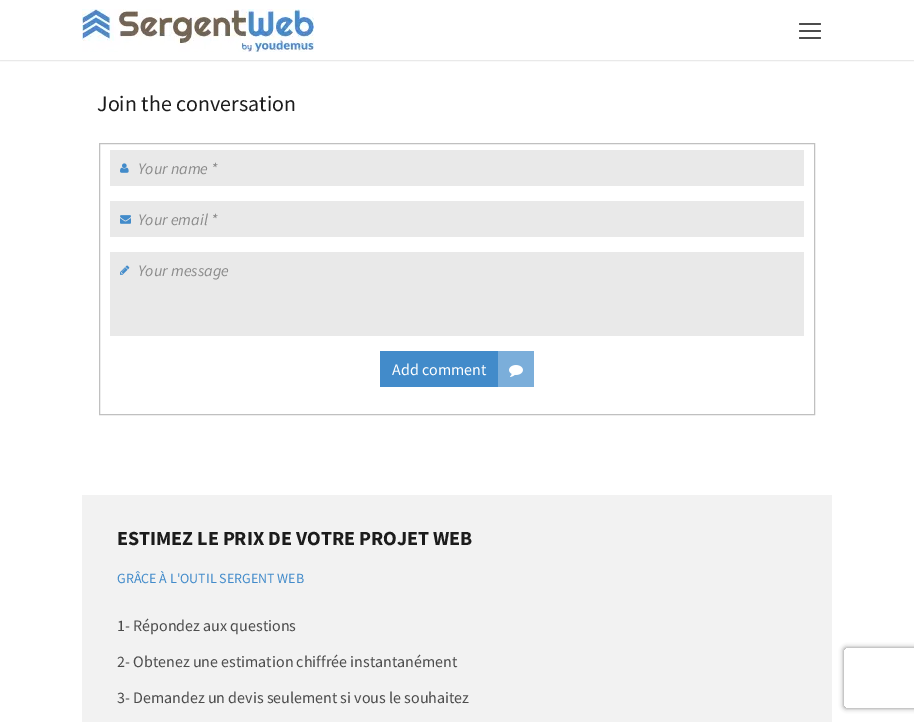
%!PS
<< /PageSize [914 722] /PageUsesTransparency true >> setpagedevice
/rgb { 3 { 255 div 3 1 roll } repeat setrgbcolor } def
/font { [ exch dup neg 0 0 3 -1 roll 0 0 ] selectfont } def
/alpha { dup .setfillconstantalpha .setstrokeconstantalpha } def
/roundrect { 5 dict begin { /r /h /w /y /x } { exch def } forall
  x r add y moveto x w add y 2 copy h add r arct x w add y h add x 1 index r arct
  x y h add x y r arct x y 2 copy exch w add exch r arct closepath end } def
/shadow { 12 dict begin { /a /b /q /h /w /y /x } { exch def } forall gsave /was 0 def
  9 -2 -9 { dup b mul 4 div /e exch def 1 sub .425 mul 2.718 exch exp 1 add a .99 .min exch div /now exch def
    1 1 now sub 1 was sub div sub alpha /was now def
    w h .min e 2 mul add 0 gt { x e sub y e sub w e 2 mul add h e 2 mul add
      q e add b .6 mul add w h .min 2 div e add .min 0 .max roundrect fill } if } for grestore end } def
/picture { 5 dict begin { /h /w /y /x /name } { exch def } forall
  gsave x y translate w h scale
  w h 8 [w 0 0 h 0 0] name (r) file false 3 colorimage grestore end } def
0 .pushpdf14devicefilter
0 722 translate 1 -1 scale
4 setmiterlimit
255 255 255 rgb
0 0 914 722 rectfill
0 0 0 rgb
0 1 914 60 0 0.5 0.1 shadow
255 255 255 rgb
0 0 914 60 rectfill
(img/1.rgb) 82 9 232 43 picture
76 76 76 rgb
799 23 22 2 1 roundrect fill
799 30 22 2 1 roundrect fill
799 37 22 2 1 roundrect fill
192 192 192 rgb
99.5 143.5 715 271 rectstroke
233 233 233 rgb
110 150 694 36 rectfill
(img/2.rgb) 120 163 9 10 picture
110 201 694 36 rectfill
(img/3.rgb) 120 215 11 9 picture
110 252 694 84 rectfill
(img/4.rgb) 120 265 10 10 picture
66 139 202 rgb
380 351 118 36 rectfill
123 174 218 rgb
498 351 36 36 rectfill
(img/5.rgb) 509 365 14 12 picture
242 242 242 rgb
82 495 750 227 rectfill
gsave
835 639 moveto 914 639 lineto 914 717 lineto 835 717 lineto closepath 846 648 moveto 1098 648 lineto 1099 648 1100 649 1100 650 curveto 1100 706 lineto 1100 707 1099 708 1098 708 curveto 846 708 lineto 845 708 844 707 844 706 curveto 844 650 lineto 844 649 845 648 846 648 curveto closepath eoclip newpath
128 128 128 rgb
844 648 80 60 2 2.5 1 shadow
grestore
/SourceSansPro-Regular 22 font
28 28 28 rgb
97 111 moveto (Join the conversation) show
/SourceSansPro-Italic 16 font
140 140 140 rgb
[
  [(Your name *) 138 174]
  [(Your email *) 138 225]
  [(Your message) 138 276]
] { aload pop moveto show } forall
/SourceSansPro-Regular 16 font
255 255 255 rgb
392 375 moveto (Add comment) show
/SourceSansPro-Bold 20 font
28 28 28 rgb
117 545 moveto (ESTIMEZ LE PRIX DE VOTRE PROJET WEB) show
/SourceSansPro-Regular 14 font
66 139 202 rgb
117 583 moveto (GRÂCE À L'OUTIL SERGENT WEB) show
/SourceSansPro-Regular 16 font
76 76 76 rgb
[
  [(1- Répondez aux questions) 117 631]
  [(2- Obtenez une estimation chiffrée instantanément) 117 667]
  [(3- Demandez un devis seulement si vous le souhaitez) 117 703]
] { aload pop moveto show } forall
.poppdf14devicefilter showpage
